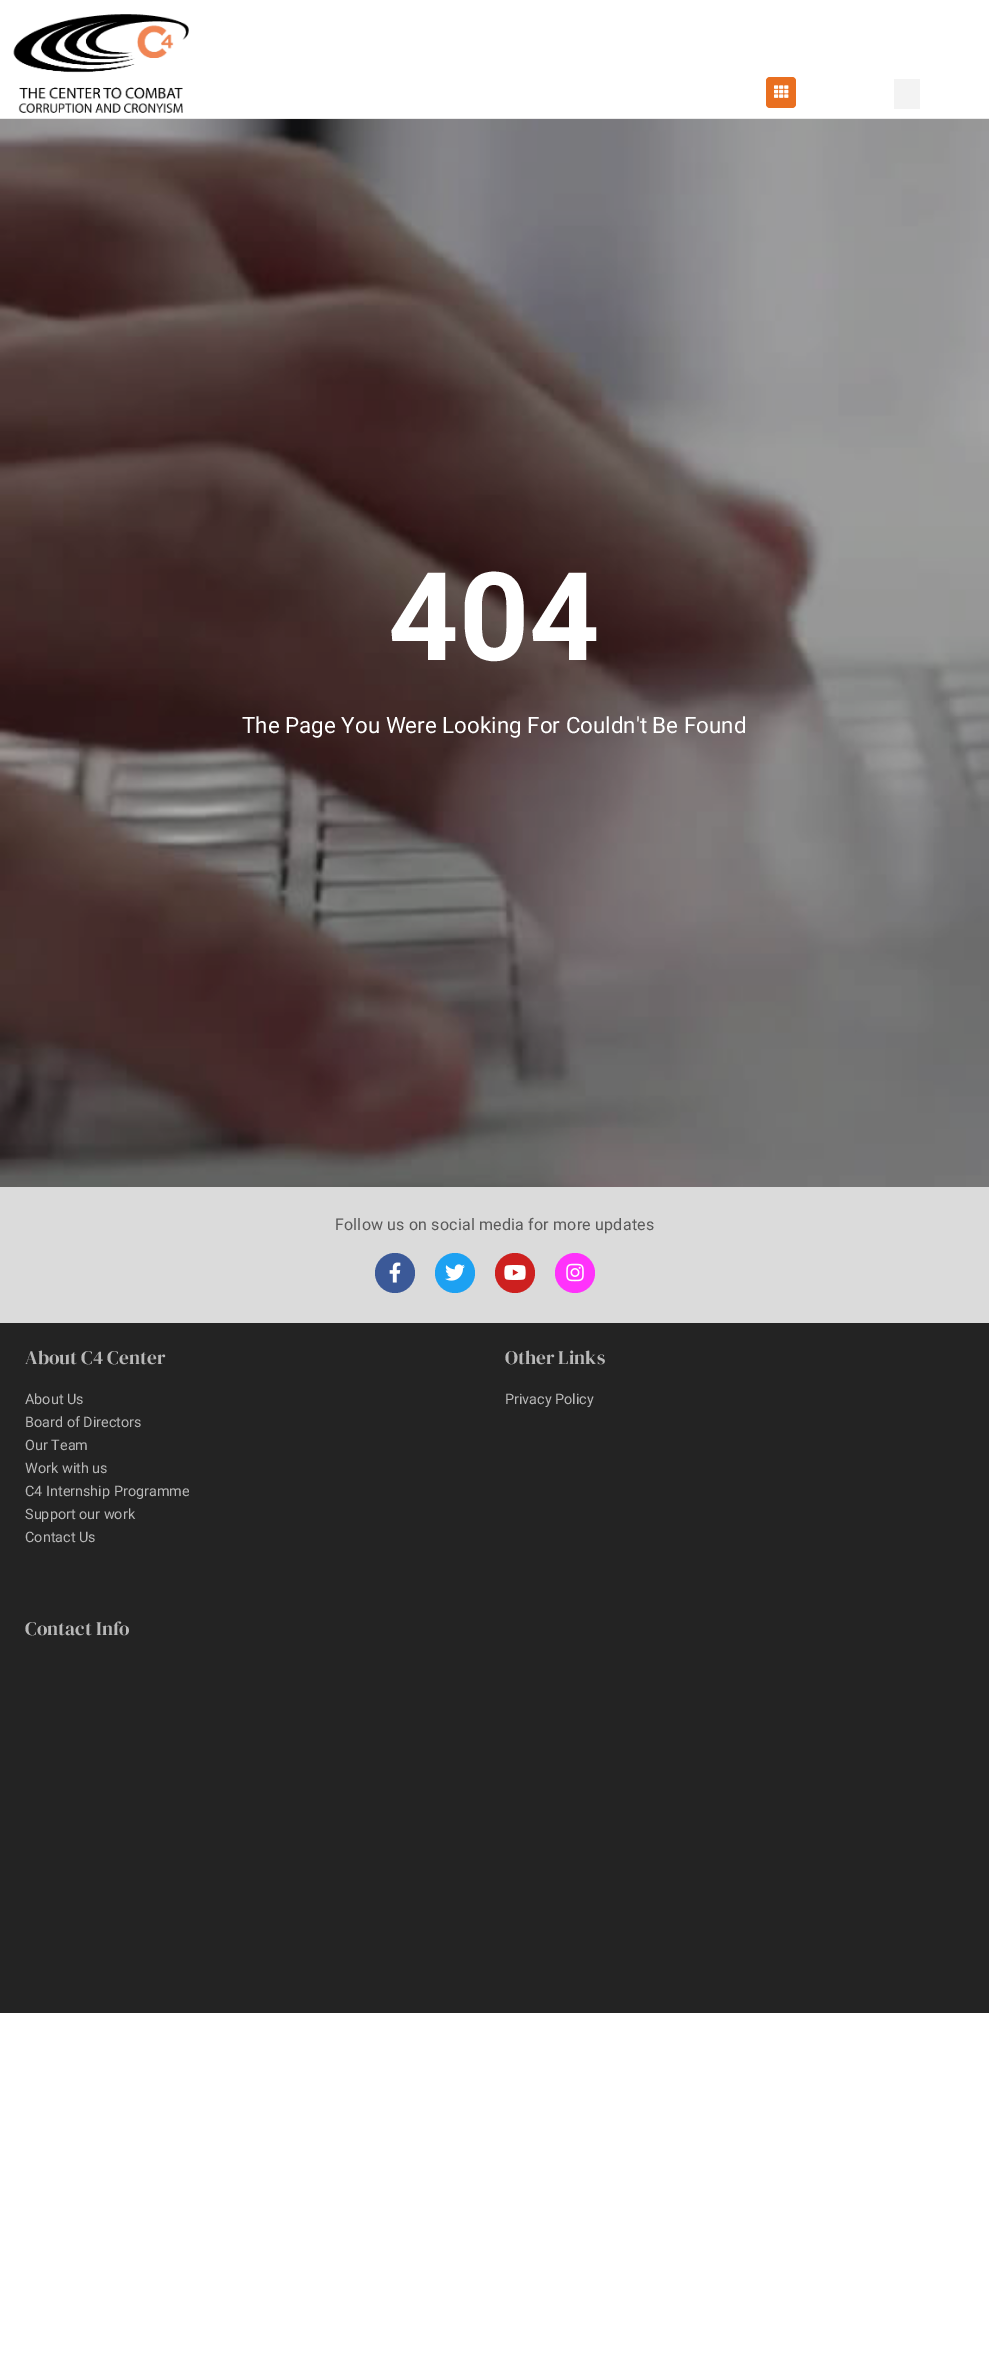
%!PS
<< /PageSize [989 2374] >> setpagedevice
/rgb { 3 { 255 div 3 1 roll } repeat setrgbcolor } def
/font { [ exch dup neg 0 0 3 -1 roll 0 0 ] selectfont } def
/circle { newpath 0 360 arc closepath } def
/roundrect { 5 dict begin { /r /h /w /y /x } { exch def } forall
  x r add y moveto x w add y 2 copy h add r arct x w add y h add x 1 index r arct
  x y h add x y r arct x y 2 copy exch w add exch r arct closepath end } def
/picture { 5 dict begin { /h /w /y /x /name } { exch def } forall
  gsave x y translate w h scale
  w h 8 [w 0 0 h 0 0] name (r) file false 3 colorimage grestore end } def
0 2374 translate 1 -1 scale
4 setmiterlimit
255 255 255 rgb
0 0 989 2374 rectfill
234 234 234 rgb
0 118 989 1 rectfill
(img/1.rgb) 13 14 176 99 picture
233 111 32 rgb
766 77 30 31 4 roundrect fill
(img/2.rgb) 774 85 15 13 picture
243 243 243 rgb
894 79 26 30 rectfill
(img/3.rgb) 0 119 989 1068 picture
219 219 219 rgb
0 1187 989 136 rectfill
59 89 152 rgb
395 1273 20 circle fill
(img/4.rgb) 389 1262 12 21 picture
29 161 242 rgb
455 1273 20 circle fill
(img/5.rgb) 445 1264 20 17 picture
205 32 31 rgb
515 1273 20 circle fill
(img/6.rgb) 504 1265 22 15 picture
255 50 251 rgb
575 1273 20 circle fill
(img/7.rgb) 566 1263 18 19 picture
35 35 35 rgb
0 1323 989 690 rectfill
/Roboto-Bold 123 font
255 255 255 rgb
388 660 moveto (404) show
/Roboto-Regular 22.4 font
242 733 moveto (The Page You Were Looking For Couldn't Be Found) show
/Roboto-Regular 16 font
90 90 90 rgb
335 1230 moveto 0.2 0 (Follow us on social media for more updates) ashow
/DMSerifDisplay-Regular 19.25 font
184 184 184 rgb
25 1364 moveto (About C4 Center) show
/Roboto-Regular 14.4 font
[
  [(About Us) 25 1404]
  [(Board of Directors) 25 1427]
  [(Our Team) 25 1450]
  [(Work with us) 25 1473]
  [(C4 Internship Programme) 25 1496]
  [(Support our work) 25 1519]
  [(Contact Us) 25 1542]
] { aload pop moveto show } forall
/DMSerifDisplay-Regular 19.25 font
505 1364 moveto (Other Links) show
/Roboto-Regular 14.4 font
505 1404 moveto (Privacy Policy) show
/DMSerifDisplay-Regular 19.25 font
25 1635 moveto (Contact Info) show
showpage
